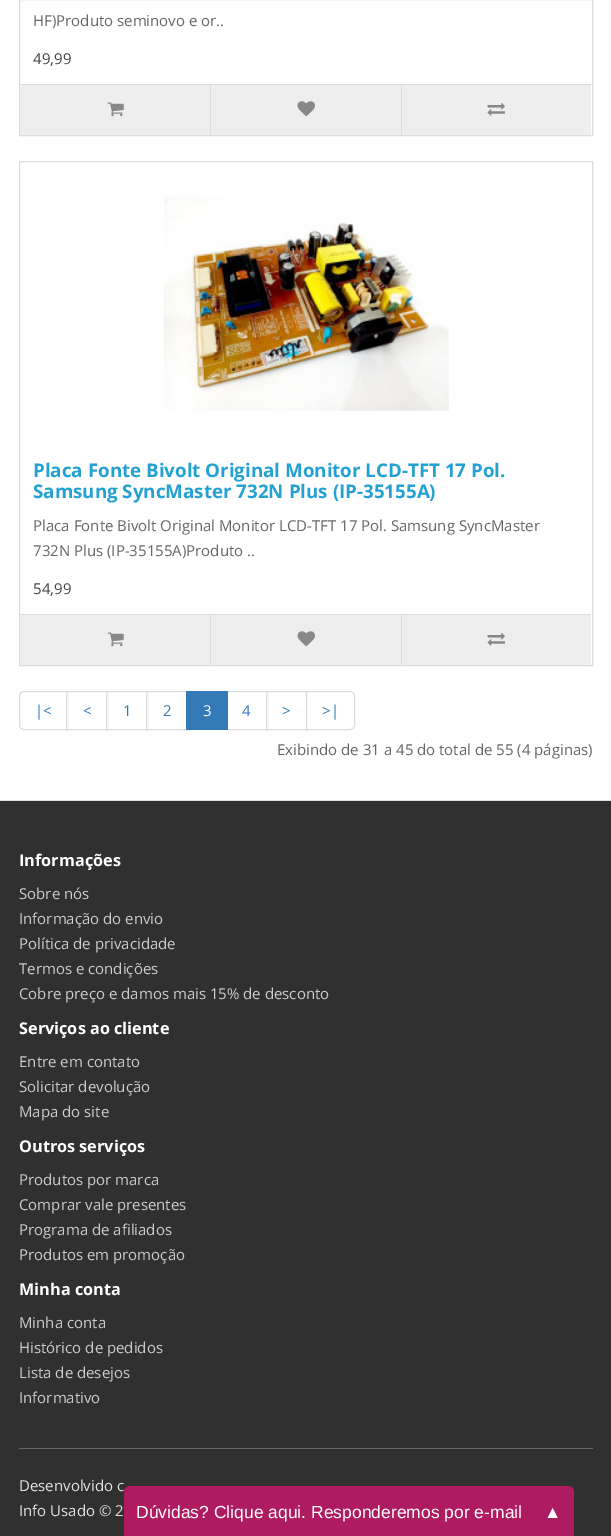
%!PS
<< /PageSize [611 1536] >> setpagedevice
/rgb { 3 { 255 div 3 1 roll } repeat setrgbcolor } def
/font { [ exch dup neg 0 0 3 -1 roll 0 0 ] selectfont } def
/picture { 5 dict begin { /h /w /y /x /name } { exch def } forall
  gsave x y translate w h scale
  w h 8 [w 0 0 h 0 0] name (r) file false 3 colorimage grestore end } def
0 1536 translate 1 -1 scale
4 setmiterlimit
255 255 255 rgb
0 0 611 1536 rectfill
221 221 221 rgb
19.5 -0.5 573 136 rectstroke
238 238 238 rgb
20 85 571 50 rectfill
221 221 221 rgb
20 84 571 1 rectfill
(img/1.rgb) 107 102 17 15 picture
210 85 1 50 rectfill
(img/2.rgb) 297 101 18 16 picture
401 85 1 50 rectfill
(img/3.rgb) 487 102 18 14 picture
19.5 161.5 573 504 rectstroke
(img/4.rgb) 163 196 286 216 picture
238 238 238 rgb
20 615 571 50 rectfill
221 221 221 rgb
20 614 571 1 rectfill
(img/1.rgb) 107 632 17 15 picture
210 615 1 50 rectfill
(img/2.rgb) 297 631 18 16 picture
401 615 1 50 rectfill
(img/3.rgb) 487 632 18 14 picture
24 691.5 moveto 67.5 691.5 lineto 67.5 729.5 lineto 24 729.5 lineto 21.5 729.5 19.5 727.5 19.5 725 curveto 19.5 696 lineto 19.5 693.5 21.5 691.5 24 691.5 curveto closepath stroke
255 255 255 rgb
67 692 1 37 rectfill
221 221 221 rgb
66.5 691.5 41 38 rectstroke
255 255 255 rgb
107 692 1 37 rectfill
221 221 221 rgb
106.5 691.5 41 38 rectstroke
255 255 255 rgb
147 692 1 37 rectfill
221 221 221 rgb
146.5 691.5 41 38 rectstroke
226.5 691.5 41 38 rectstroke
51 122 183 rgb
186 691 42 39 rectfill
255 255 255 rgb
267 692 1 37 rectfill
221 221 221 rgb
266.5 691.5 41 38 rectstroke
255 255 255 rgb
306.5 691.5 moveto 350 691.5 lineto 352.5 691.5 354.5 693.5 354.5 696 curveto 354.5 725 lineto 354.5 727.5 352.5 729.5 350 729.5 curveto 306.5 729.5 lineto closepath gsave fill grestore
221 221 221 rgb
stroke
[
  [0 801 611 735 48 48 48]
  [0 800 611 1 221 221 221]
  [19 1448 574 1 102 102 102]
] { aload pop rgb rectfill } forall
175 27 97 rgb
130 1486 moveto 568 1486 lineto 571.5 1486 574 1488.5 574 1492 curveto 574 1536 lineto 124 1536 lineto 124 1492 lineto 124 1488.5 126.5 1486 130 1486 curveto closepath fill
/OpenSans-Regular 15 font
102 102 102 rgb
33 26 moveto (HF\)Produto seminovo e or..) show
68 68 68 rgb
33 64 moveto (49,99) show
/OpenSans-Bold 18.75 font
35 161 209 rgb
33 477 moveto (Placa Fonte Bivolt Original Monitor LCD-TFT 17 Pol.) show
33 498 moveto (Samsung SyncMaster 732N Plus \(IP-35155A\)) show
/OpenSans-Regular 15 font
102 102 102 rgb
33 531 moveto (Placa Fonte Bivolt Original Monitor LCD-TFT 17 Pol. Samsung SyncMaster) show
33 556 moveto (732N Plus \(IP-35155A\)Produto ..) show
68 68 68 rgb
33 594 moveto (54,99) show
51 122 183 rgb
[
  [(|<) 35 716]
  [(<) 83 716]
  [(1) 123 716]
  [(2) 163 716]
] { aload pop moveto show } forall
255 255 255 rgb
203 716 moveto (3) show
51 122 183 rgb
[
  [(4) 242 716]
  [(>) 282 716]
  [(>|) 322 716]
] { aload pop moveto show } forall
102 102 102 rgb
277 755 moveto (Exibindo de 31 a 45 do total de 55 \(4 páginas\)) show
/OpenSans-Bold 16.25 font
255 255 255 rgb
19 866 moveto (Informações) show
/OpenSans-Regular 15 font
204 204 204 rgb
[
  [(Sobre nós) 19 899]
  [(Informação do envio) 19 924]
  [(Política de privacidade) 19 949]
  [(Termos e condições) 19 974]
  [(Cobre preço e damos mais 15% de desconto) 19 999]
] { aload pop moveto show } forall
/OpenSans-Bold 16.25 font
255 255 255 rgb
19 1034 moveto (Serviços ao cliente) show
/OpenSans-Regular 15 font
204 204 204 rgb
[
  [(Entre em contato) 19 1067]
  [(Solicitar devolução) 19 1092]
  [(Mapa do site) 19 1117]
] { aload pop moveto show } forall
/OpenSans-Bold 16.25 font
255 255 255 rgb
19 1152 moveto (Outros serviços) show
/OpenSans-Regular 15 font
204 204 204 rgb
[
  [(Produtos por marca) 19 1185]
  [(Comprar vale presentes) 19 1210]
  [(Programa de afiliados) 19 1235]
  [(Produtos em promoção) 19 1260]
] { aload pop moveto show } forall
/OpenSans-Bold 16.25 font
255 255 255 rgb
19 1295 moveto (Minha conta) show
/OpenSans-Regular 15 font
204 204 204 rgb
[
  [(Minha conta) 19 1328]
  [(Histórico de pedidos) 19 1353]
  [(Lista de desejos) 19 1378]
  [(Informativo) 19 1403]
] { aload pop moveto show } forall
226 226 226 rgb
19 1491 moveto (Desenvolvido c) show
19 1516 moveto (Info Usado © 2) show
/LiberationSans-Regular 17.5 font
255 255 255 rgb
136 1518 moveto (Dúvidas? Clique aqui. Responderemos por e-mail) show
544 1518 moveto (▲) show
showpage
